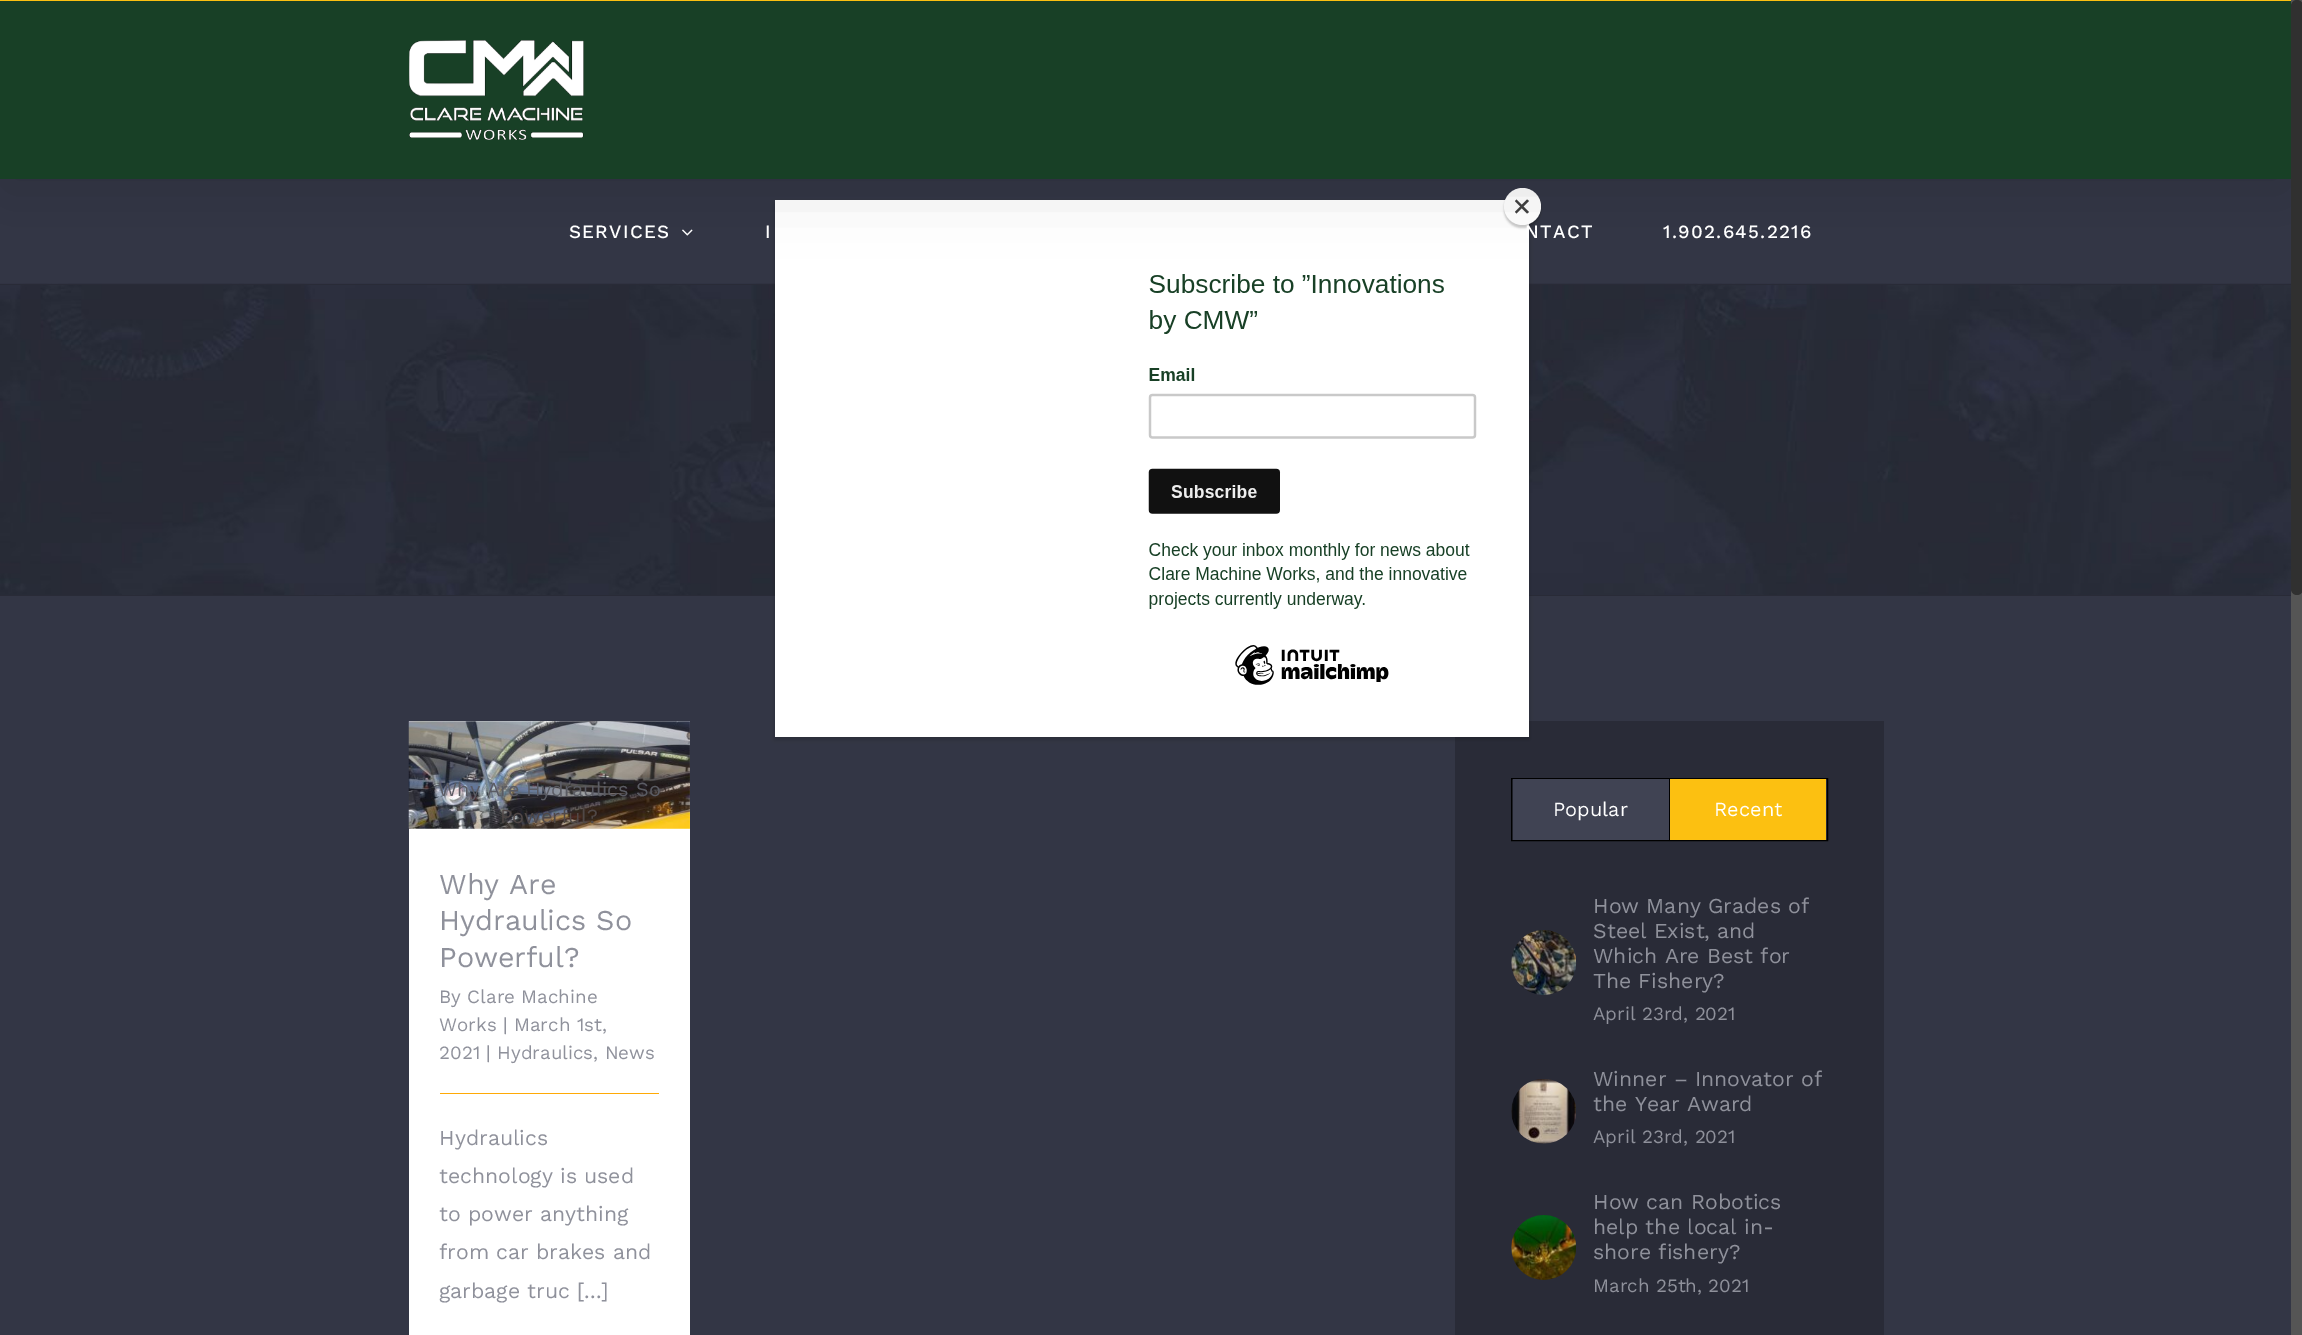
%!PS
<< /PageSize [2302 1335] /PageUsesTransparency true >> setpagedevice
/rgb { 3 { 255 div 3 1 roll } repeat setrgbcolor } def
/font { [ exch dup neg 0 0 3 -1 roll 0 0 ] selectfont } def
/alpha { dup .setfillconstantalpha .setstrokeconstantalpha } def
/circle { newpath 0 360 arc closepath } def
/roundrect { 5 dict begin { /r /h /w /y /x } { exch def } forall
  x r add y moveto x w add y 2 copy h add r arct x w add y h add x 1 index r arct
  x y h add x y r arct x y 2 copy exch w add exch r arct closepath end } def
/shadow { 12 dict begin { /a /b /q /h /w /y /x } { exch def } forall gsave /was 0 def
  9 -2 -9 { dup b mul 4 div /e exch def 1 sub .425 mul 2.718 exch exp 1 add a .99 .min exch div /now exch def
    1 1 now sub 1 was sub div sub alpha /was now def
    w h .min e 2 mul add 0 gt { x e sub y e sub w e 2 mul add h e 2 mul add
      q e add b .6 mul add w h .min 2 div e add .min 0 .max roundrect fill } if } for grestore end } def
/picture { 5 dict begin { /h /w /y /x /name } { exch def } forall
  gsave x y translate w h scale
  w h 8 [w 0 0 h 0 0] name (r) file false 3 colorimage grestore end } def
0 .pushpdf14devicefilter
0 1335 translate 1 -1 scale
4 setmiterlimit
51 54 69 rgb
0 0 2302 1335 rectfill
(img/4.rgb) 0 283 2291 312 picture
[
  [0 284 2291 1 41 43 55]
  [0 595 2291 1 41 43 55]
  [1455 721 429 614 41 43 55]
] { aload pop rgb rectfill } forall
0 0 0 rgb
775 203 754 536 0 2.5 0.2 shadow
(img/1.rgb) 775 200 754 537 picture
1504 190 37 38 18.5 1 0.2 shadow
255 255 255 rgb
1522.5 206.5 18.5 circle fill
65 65 65 rgb
1527 199.5 moveto 1529 201 lineto 1516.5 213.5 lineto 1515 212 lineto closepath fill
1515 201 moveto 1516.5 199.5 lineto 1529 212 lineto 1527 213.5 lineto closepath fill
0 0 0 rgb
3 15 2286 174 0 31 0.14 shadow
85 85 85 rgb
2291 0 11 1335 rectfill
48 48 48 rgb
2291 0 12 595 6 roundrect fill
252 192 17 rgb
0 0 2291 1 rectfill
24 64 38 rgb
0 1 2291 178 rectfill
(img/2.rgb) 409 40 175 100 picture
(img/3.rgb) 682 229 11 7 picture
255 255 255 rgb
409 721 281 614 rectfill
(img/5.rgb) 408 721 282 108 picture
255 170 6 rgb
440 1093 219 1 rectfill
0 0 0 rgb
1511.5 778.5 316 62 rectstroke
[
  [1669 779 1 61 0 0 0]
  [1513 779 156 61 64 67 83]
  [1670 779 156 61 252 192 17]
] { aload pop rgb rectfill } forall
(img/6.rgb) 1511 930 66 65 picture
(img/7.rgb) 1511 1079 65 65 picture
(img/8.rgb) 1511 1215 65 65 picture
/WorkSans-Medium 18.75 font
255 255 255 rgb
569 238 moveto 1.25 0 (SERVICES) ashow
765 238 moveto 1.25 0 (I) ashow
1525 238 moveto 1.25 0 (NTACT) ashow
1663 238 moveto 1.25 0 (1.902.645.2216) ashow
/WorkSans-Regular 20 font
90 91 99 rgb
438 796 moveto (Why Are Hydraulics So) show
80 72 71 rgb
500 823 moveto (Powerful?) show
/WorkSans-Regular 28.75 font
143 145 155 rgb
[
  [(Why Are) 439 894]
  [(Hydraulics So) 439 930]
  [(Powerful?) 439 967]
] { aload pop moveto show } forall
/WorkSans-Regular 18.75 font
[
  [(By Clare Machine) 439 1003]
  [(Works | March 1st,) 439 1031]
  [(2021 | Hydraulics, News) 439 1059]
] { aload pop moveto show } forall
/WorkSans-Regular 21.25 font
[
  [(Hydraulics) 439 1145]
  [(technology is used) 439 1183]
  [(to power anything) 439 1221]
  [(from car brakes and) 439 1259]
  [(garbage truc [...]) 439 1298]
] { aload pop moveto show } forall
/WorkSans-Regular 20 font
255 255 255 rgb
1553 816 moveto (Popular) show
1714 816 moveto (Recent) show
/WorkSans-Regular 21.25 font
143 145 155 rgb
[
  [(How Many Grades of) 1593 913]
  [(Steel Exist, and) 1593 938]
  [(Which Are Best for) 1593 963]
  [(The Fishery?) 1593 988]
] { aload pop moveto show } forall
/WorkSans-Regular 18.75 font
1593 1020 moveto (April 23rd, 2021) show
/WorkSans-Regular 21.25 font
1593 1086 moveto (Winner – Innovator of) show
1593 1111 moveto (the Year Award) show
/WorkSans-Regular 18.75 font
1593 1143 moveto (April 23rd, 2021) show
/WorkSans-Regular 21.25 font
[
  [(How can Robotics) 1593 1209]
  [(help the local in-) 1593 1234]
  [(shore fishery?) 1593 1259]
] { aload pop moveto show } forall
/WorkSans-Regular 18.75 font
1593 1292 moveto (March 25th, 2021) show
.poppdf14devicefilter showpage
